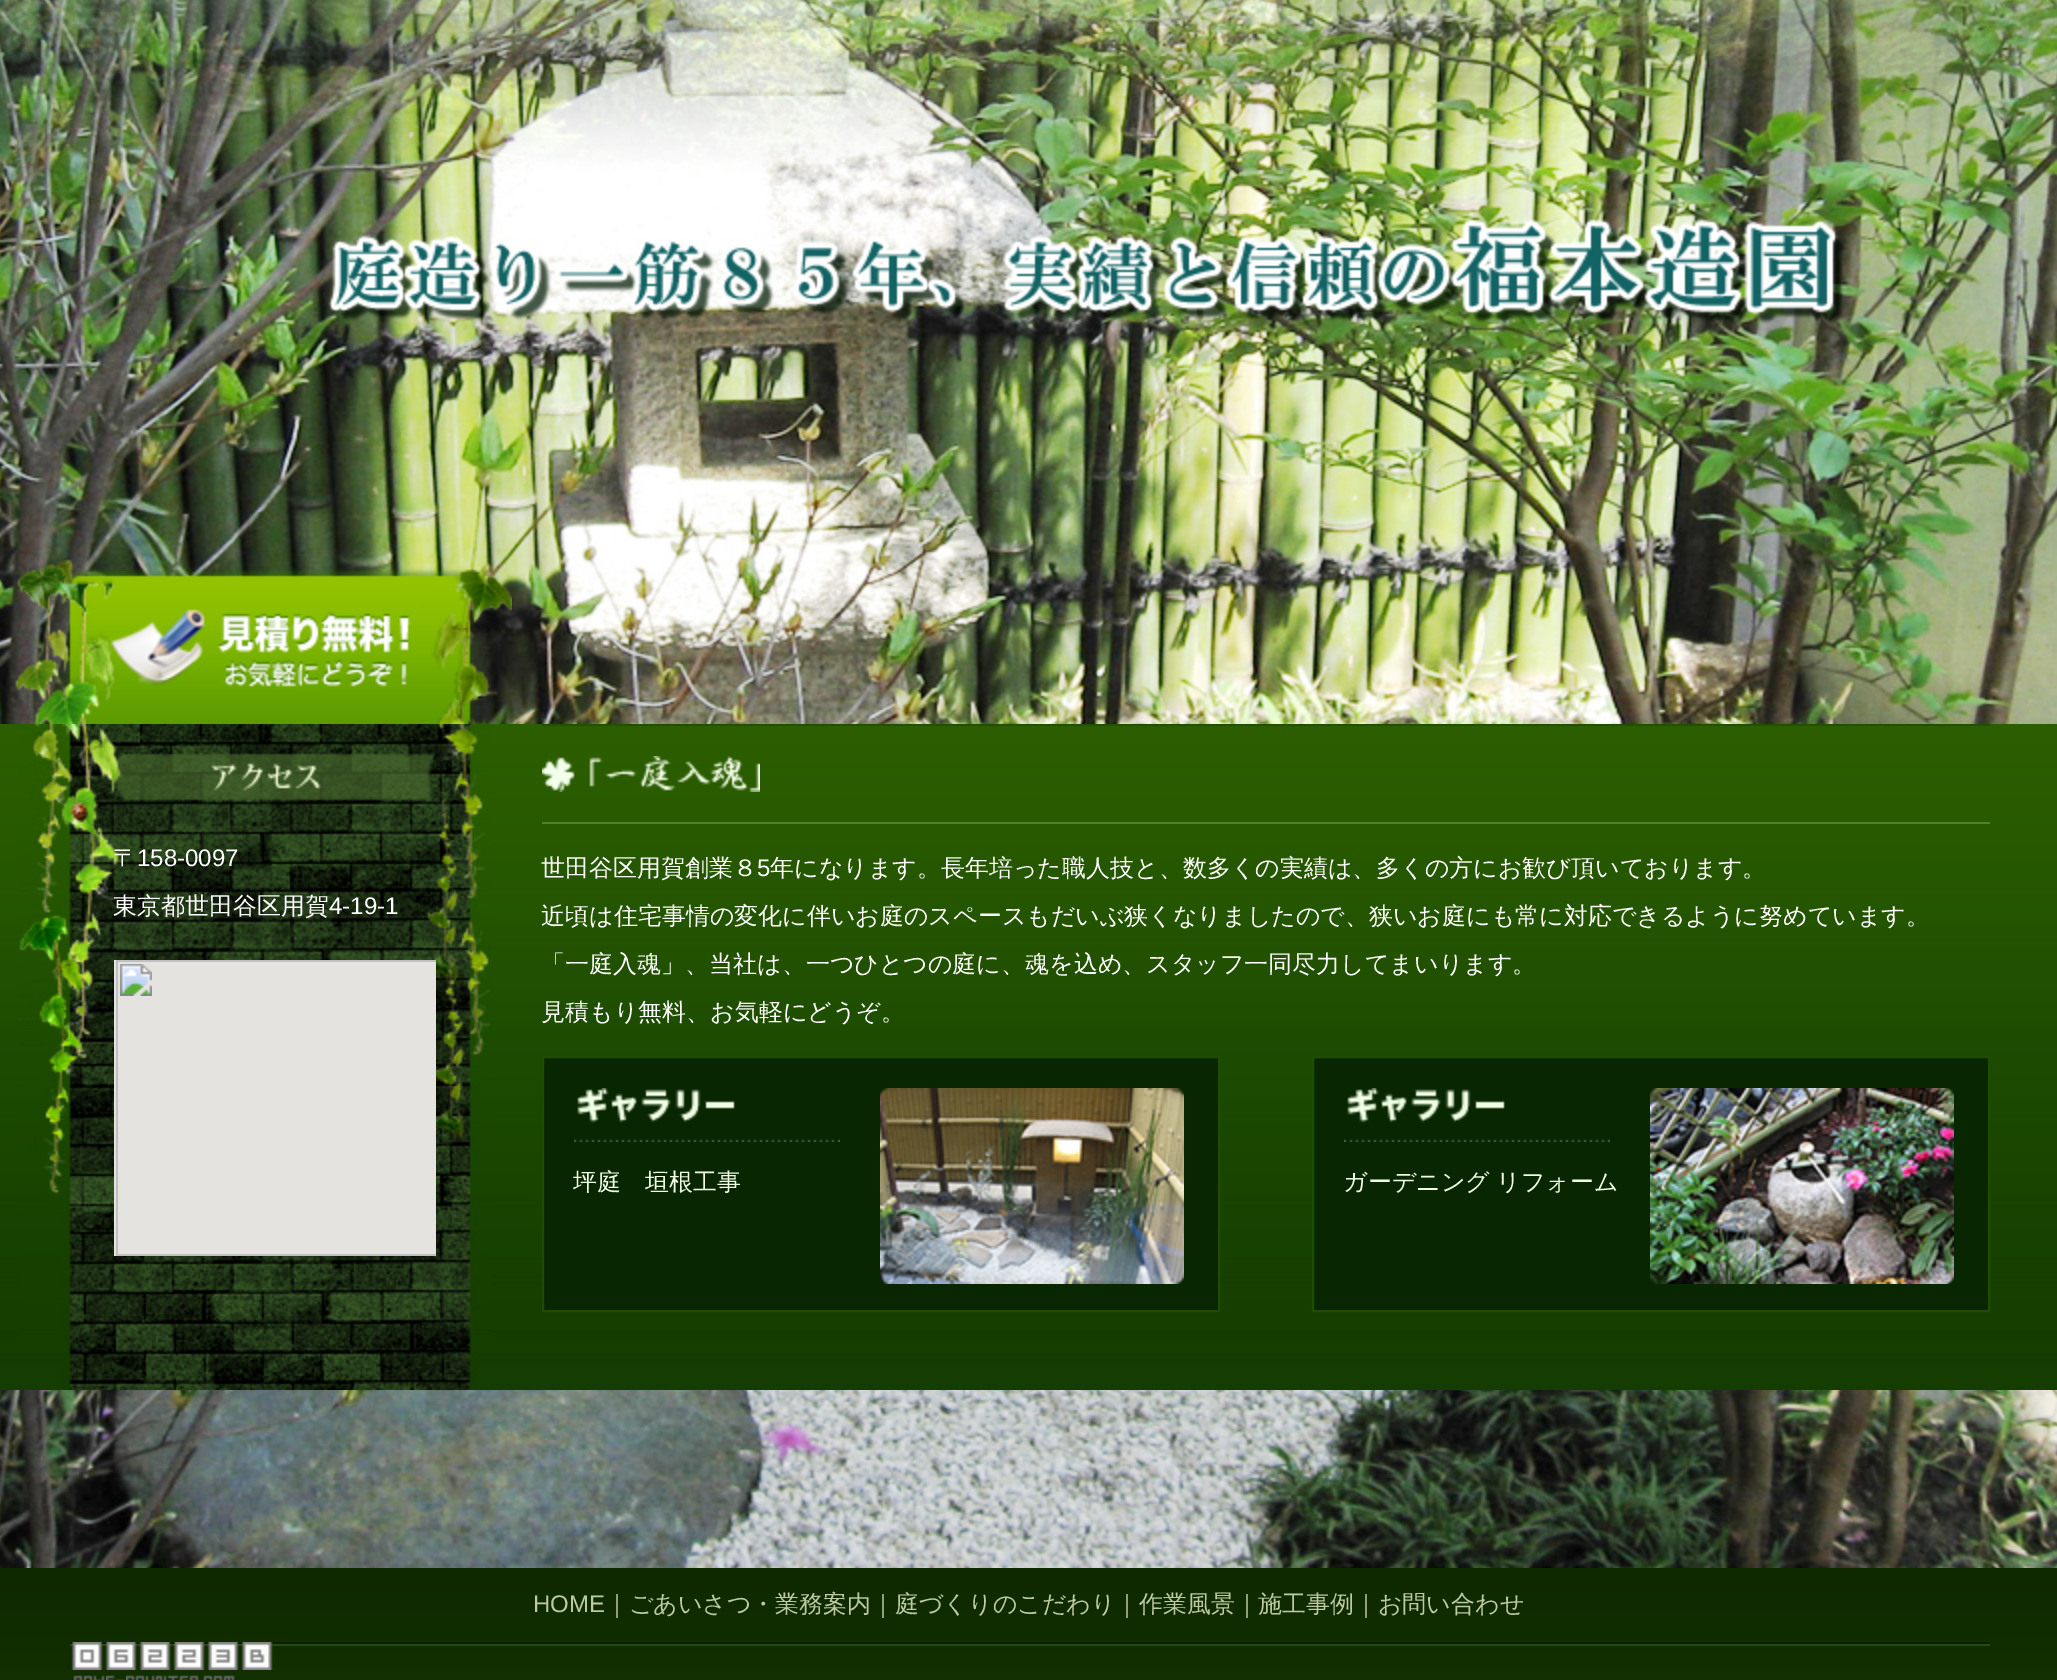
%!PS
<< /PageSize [2057 1680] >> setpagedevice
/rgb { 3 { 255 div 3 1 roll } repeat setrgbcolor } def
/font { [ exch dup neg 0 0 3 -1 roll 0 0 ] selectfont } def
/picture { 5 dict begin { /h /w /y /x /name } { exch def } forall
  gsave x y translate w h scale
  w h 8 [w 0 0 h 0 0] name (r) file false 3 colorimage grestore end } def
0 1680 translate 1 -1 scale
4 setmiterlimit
255 255 255 rgb
0 0 2057 1680 rectfill
(img/1.rgb) 0 0 2057 1568 picture
(img/2.rgb) 15 557 497 167 picture
(img/3.rgb) 0 724 2057 666 picture
(img/4.rgb) 19 724 472 666 picture
(img/5.rgb) 114 960 322 296 picture
35 80 0 rgb
542 724 1448 2 rectfill
(img/6.rgb) 542 756 218 36 picture
83 125 48 rgb
542 822 1448 2 rectfill
8 38 0 rgb
543 1057 moveto 1219 1057 lineto 1219 1311 lineto 543 1311 lineto closepath gsave fill grestore
30 76 0 rgb
2 setlinewidth
stroke
(img/7.rgb) 574 1088 266 54 picture
(img/8.rgb) 880 1088 304 196 picture
8 38 0 rgb
1313 1057 moveto 1989 1057 lineto 1989 1311 lineto 1313 1311 lineto closepath gsave fill grestore
30 76 0 rgb
stroke
(img/7.rgb) 1344 1088 266 54 picture
(img/9.rgb) 1650 1088 304 196 picture
(img/10.rgb) 0 1568 2057 112 picture
10 30 0 rgb
70 1642 1920 2 rectfill
35 74 15 rgb
70 1644 1920 2 rectfill
(img/11.rgb) 71 1642 202 28 picture
(img/12.rgb) 73 1675 15 5 picture
(img/13.rgb) 88 1675 17 5 picture
(img/14.rgb) 106 1675 19 5 picture
(img/15.rgb) 126 1675 73 5 picture
(img/16.rgb) 203 1675 32 5 picture
/WenQuanYiZenHei-Medium 24 font
255 255 255 rgb
113 866 moveto (〒) show
/LiberationSans-Regular 24 font
137 866 moveto (158-0097) show
/WenQuanYiZenHei-Medium 24 font
113 914 moveto (東京都世田谷区用賀) show
/LiberationSans-Regular 24 font
329 914 moveto (4-19-1) show
/WenQuanYiZenHei-Medium 24 font
541 876 moveto (世田谷区用賀創業８) show
/LiberationSans-Regular 24 font
757 876 moveto (5) show
/WenQuanYiZenHei-Medium 24 font
[
  [(年になります。長年培った職人技と、数多くの実績は、多くの方にお歓び頂いております。) 770 876]
  [(近頃は住宅事情の変化に伴いお庭のスペースもだいぶ狭くなりましたので、狭いお庭にも常に対応できるように努めています。) 541 924]
  [(「一庭入魂」、当社は、一つひとつの庭に、魂を込め、スタッフ一同尽力してまいります。) 541 972]
  [(見積もり無料、お気軽にどうぞ。) 541 1020]
] { aload pop moveto show } forall
241 255 229 rgb
[
  [(坪庭　垣根工事) 573 1190]
  [(ガーデニング) 1343 1190]
  [(リフォーム) 1496 1190]
] { aload pop moveto show } forall
/LiberationSans-Regular 24 font
189 203 160 rgb
533 1612 moveto (HOME) show
/WenQuanYiZenHei-Medium 24 font
605 1612 moveto (｜ごあいさつ・業務案内｜庭づくりのこだわり｜作業風景｜施工事例｜お問い合わせ) show
showpage
